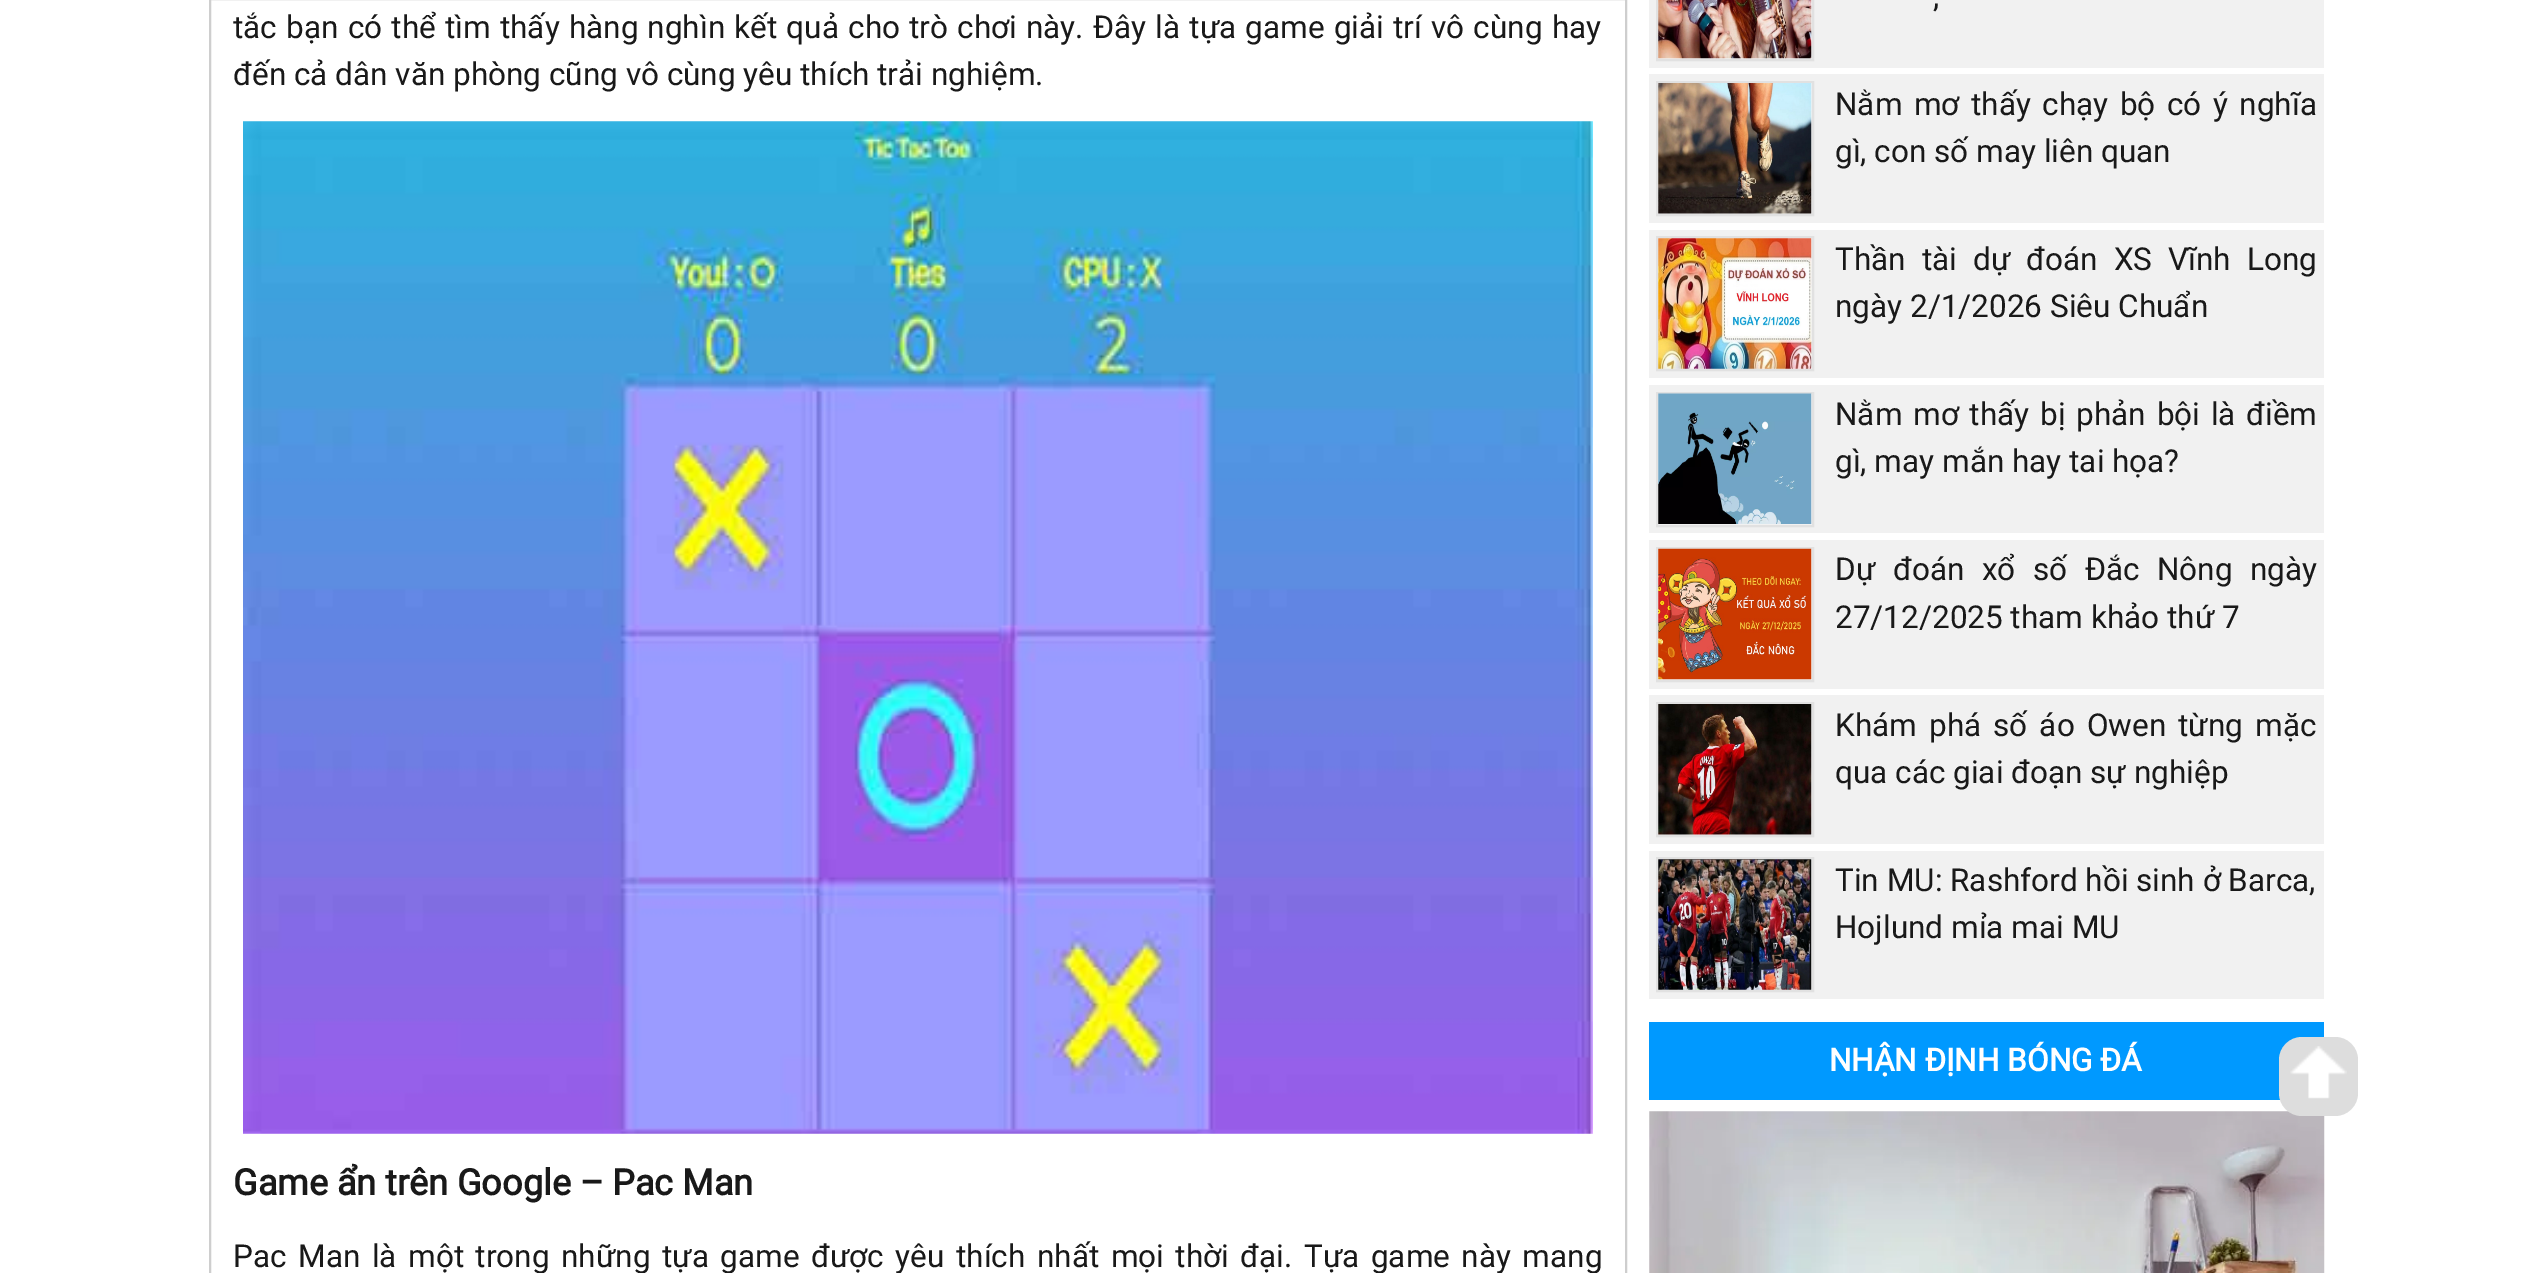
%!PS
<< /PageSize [2531 1273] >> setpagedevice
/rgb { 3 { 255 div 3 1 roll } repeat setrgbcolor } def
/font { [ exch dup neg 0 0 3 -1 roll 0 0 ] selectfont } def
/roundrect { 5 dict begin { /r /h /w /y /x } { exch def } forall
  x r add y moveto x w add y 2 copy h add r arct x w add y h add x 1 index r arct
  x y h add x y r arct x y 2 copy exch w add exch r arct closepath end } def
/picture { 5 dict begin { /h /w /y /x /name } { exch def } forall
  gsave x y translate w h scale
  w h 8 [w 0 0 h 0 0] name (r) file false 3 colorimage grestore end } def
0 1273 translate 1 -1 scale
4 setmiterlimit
255 255 255 rgb
0 0 2531 1273 rectfill
206 206 206 rgb
2 setlinewidth
210 -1 1416 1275 rectstroke
(img/1.rgb) 243 121 1350 1013 picture
241 241 241 rgb
1649 0 675 68 rectfill
225 225 225 rgb
1657 -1 156 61 rectstroke
(img/2.rgb) 1658 0 154 59 picture
241 241 241 rgb
1649 74 675 149 rectfill
225 225 225 rgb
1657 82 156 133 rectstroke
(img/3.rgb) 1658 83 154 131 picture
241 241 241 rgb
1649 230 675 148 rectfill
225 225 225 rgb
1657 237 156 133 rectstroke
(img/4.rgb) 1658 238 154 131 picture
241 241 241 rgb
1649 385 675 148 rectfill
225 225 225 rgb
1657 393 156 133 rectstroke
(img/5.rgb) 1658 393 154 131 picture
241 241 241 rgb
1649 540 675 149 rectfill
225 225 225 rgb
1657 548 156 133 rectstroke
(img/6.rgb) 1658 548 154 132 picture
241 241 241 rgb
1649 695 675 149 rectfill
225 225 225 rgb
1657 703 156 133 rectstroke
(img/7.rgb) 1658 704 154 131 picture
241 241 241 rgb
1649 851 675 148 rectfill
225 225 225 rgb
1657 858 156 133 rectstroke
(img/8.rgb) 1658 859 154 131 picture
0 153 255 rgb
1649 1022 675 78 rectfill
(img/9.rgb) 1649 1111 676 162 picture
221 221 221 rgb
2279 1037 79 79 23 roundrect fill
(img/10.rgb) 2290 1046 57 53 picture
/Roboto-Regular 31.5 font
25 25 25 rgb
233 38 moveto 1.4 0 32 (tắc bạn có thể tìm thấy hàng nghìn kết quả cho trò chơi này. Đây là tựa game giải trí vô cùng hay) widthshow
233 85 moveto (đến cả dân văn phòng cũng vô cùng yêu thích trải nghiệm.) show
/Roboto-Bold 36 font
233 1195 moveto (Game ẩn trên Google – Pac Man) show
/Roboto-Regular 31.5 font
233 1267 moveto 3.75 0 32 (Pac Man là một trong những tựa game được yêu thích nhất mọi thời đại. Tựa game này mang) widthshow
1933 7 moveto (,) show
1835 115 moveto 3.75 0 32 (Nằm mơ thấy chạy bộ có ý nghĩa) widthshow
1835 162 moveto (gì, con số may liên quan) show
1835 270 moveto 8.25 0 32 (Thần tài dự đoán XS Vĩnh Long) widthshow
1835 317 moveto (ngày 2/1/2026 Siêu Chuẩn) show
1835 425 moveto 3 0 32 (Nằm mơ thấy bị phản bội là điềm) widthshow
1835 472 moveto (gì, may mắn hay tai họa?) show
1835 580 moveto 9.75 0 32 (Dự đoán xổ số Đắc Nông ngày) widthshow
1835 628 moveto (27/12/2025 tham khảo thứ 7) show
1835 736 moveto 4.25 0 32 (Khám phá số áo Owen từng mặc) widthshow
[
  [(qua các giai đoạn sự nghiệp) 1835 783]
  [(Tin MU: Rashford hồi sinh ở Barca,) 1835 891]
  [(Hojlund mỉa mai MU) 1835 938]
] { aload pop moveto show } forall
/Roboto-Bold 31.5 font
255 255 255 rgb
1829 1071 moveto (NHẬN ĐỊNH BÓNG ĐÁ) show
showpage
